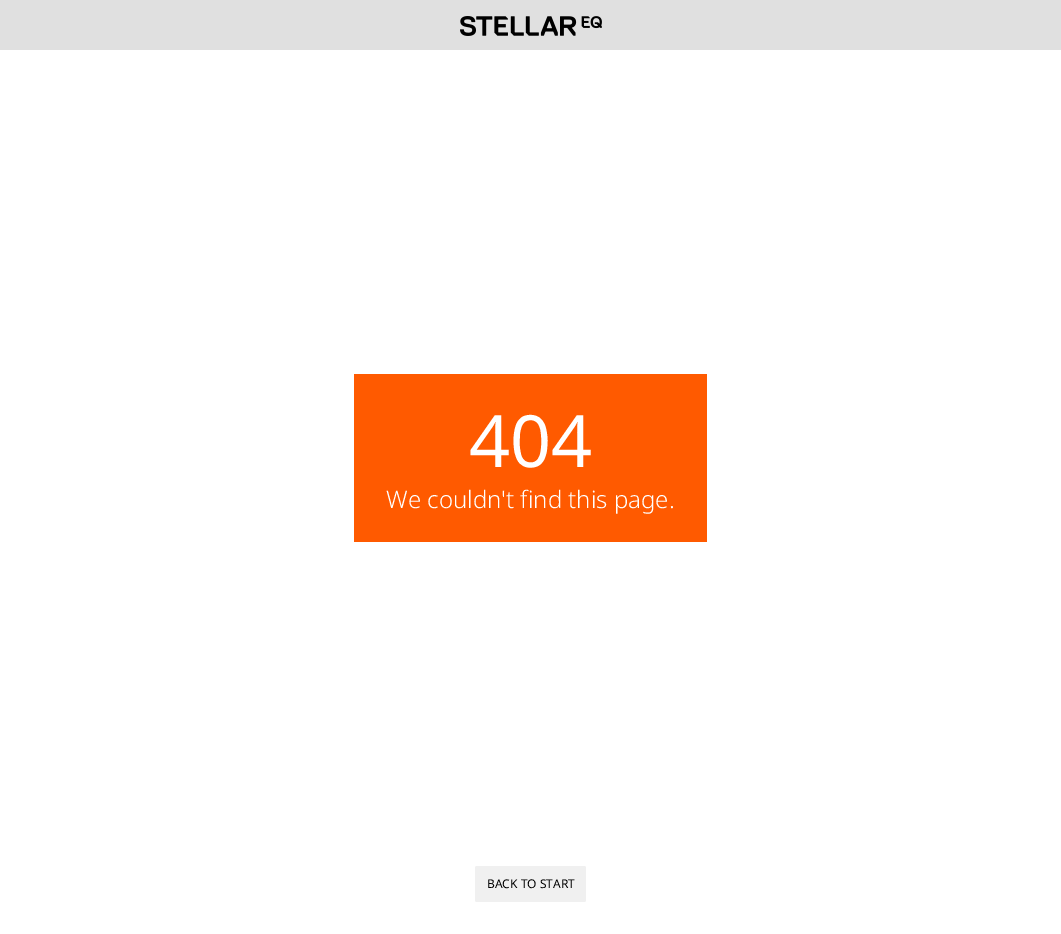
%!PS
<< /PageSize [1061 934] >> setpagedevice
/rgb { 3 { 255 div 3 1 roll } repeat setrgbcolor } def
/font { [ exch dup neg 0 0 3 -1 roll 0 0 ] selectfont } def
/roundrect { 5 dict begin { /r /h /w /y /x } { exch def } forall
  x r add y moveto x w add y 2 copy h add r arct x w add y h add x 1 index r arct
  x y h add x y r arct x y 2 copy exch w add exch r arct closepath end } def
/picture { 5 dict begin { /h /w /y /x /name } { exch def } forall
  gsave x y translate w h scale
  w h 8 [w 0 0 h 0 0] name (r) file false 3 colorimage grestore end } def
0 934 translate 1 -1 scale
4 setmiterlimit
255 255 255 rgb
0 0 1061 934 rectfill
224 224 224 rgb
0 0 1061 50 rectfill
(img/1.rgb) 460 16 142 20 picture
255 90 0 rgb
354 374 353 168 rectfill
240 240 240 rgb
475 866 111 36 2 roundrect fill
/NotoSans-Regular 72 font
255 255 255 rgb
469 467 moveto (404) show
/NotoSans-Light 24 font
386 508 moveto (We couldn't find this page.) show
/NotoSans-Regular 12 font
0 0 0 rgb
487 888 moveto (BACK TO START) show
showpage
